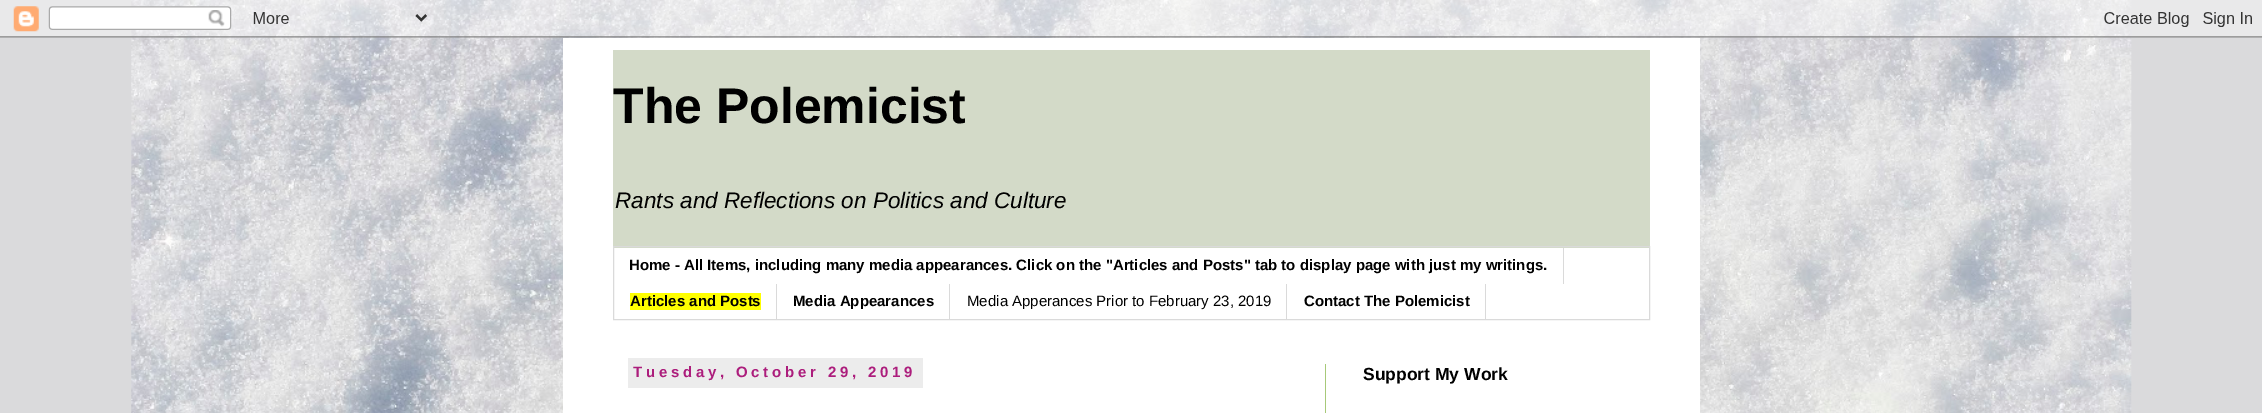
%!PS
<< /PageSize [2262 413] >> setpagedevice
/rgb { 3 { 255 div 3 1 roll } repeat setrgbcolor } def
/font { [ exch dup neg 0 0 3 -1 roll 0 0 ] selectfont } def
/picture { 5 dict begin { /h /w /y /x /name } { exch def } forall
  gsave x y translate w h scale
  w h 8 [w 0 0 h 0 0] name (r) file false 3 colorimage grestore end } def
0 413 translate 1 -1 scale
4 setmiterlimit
218 218 220 rgb
0 0 2262 413 rectfill
(img/1.rgb) 131 0 2001 413 picture
(img/2.rgb) 0 0 2262 38 picture
255 255 255 rgb
563 38 1137 375 rectfill
211 218 200 rgb
613 50 1037 198 rectfill
218 218 218 rgb
613.5 246.5 1036 73 rectstroke
[
  [1563 248 1 36 218 218 218]
  [776 284 1 35 218 218 218]
  [630 293 131 17 255 255 0]
  [949 284 1 35 218 218 218]
  [1286 284 1 35 218 218 218]
  [1485 284 1 35 218 218 218]
  [1325 364 1 49 167 201 121]
  [628 358 295 30 236 236 236]
] { aload pop rgb rectfill } forall
/LiberationSans-Bold 50 font
0 0 0 rgb
613 123 moveto (The Polemicist) show
/LiberationSans-Italic 22.5 font
615 208 moveto (Rants and Reflections on Politics and Culture) show
/LiberationSans-Bold 15 font
[
  [(Home - All Items, including many media appearances. Click on the "Articles and Posts" tab to display page with just my writings.) 629 270]
  [(Articles and Posts) 630 306]
  [(Media Appearances) 793 306]
] { aload pop moveto show } forall
/LiberationSans-Regular 15 font
967 306 moveto (Media Apperances Prior to February 23, 2019) show
/LiberationSans-Bold 15 font
1304 306 moveto (Contact The Polemicist) show
172 29 124 rgb
633 377 moveto 3.75 0 (Tuesday, October 29, 2019) ashow
/LiberationSans-Bold 17.5 font
0 0 0 rgb
1363 380 moveto (Support My Work) show
showpage
